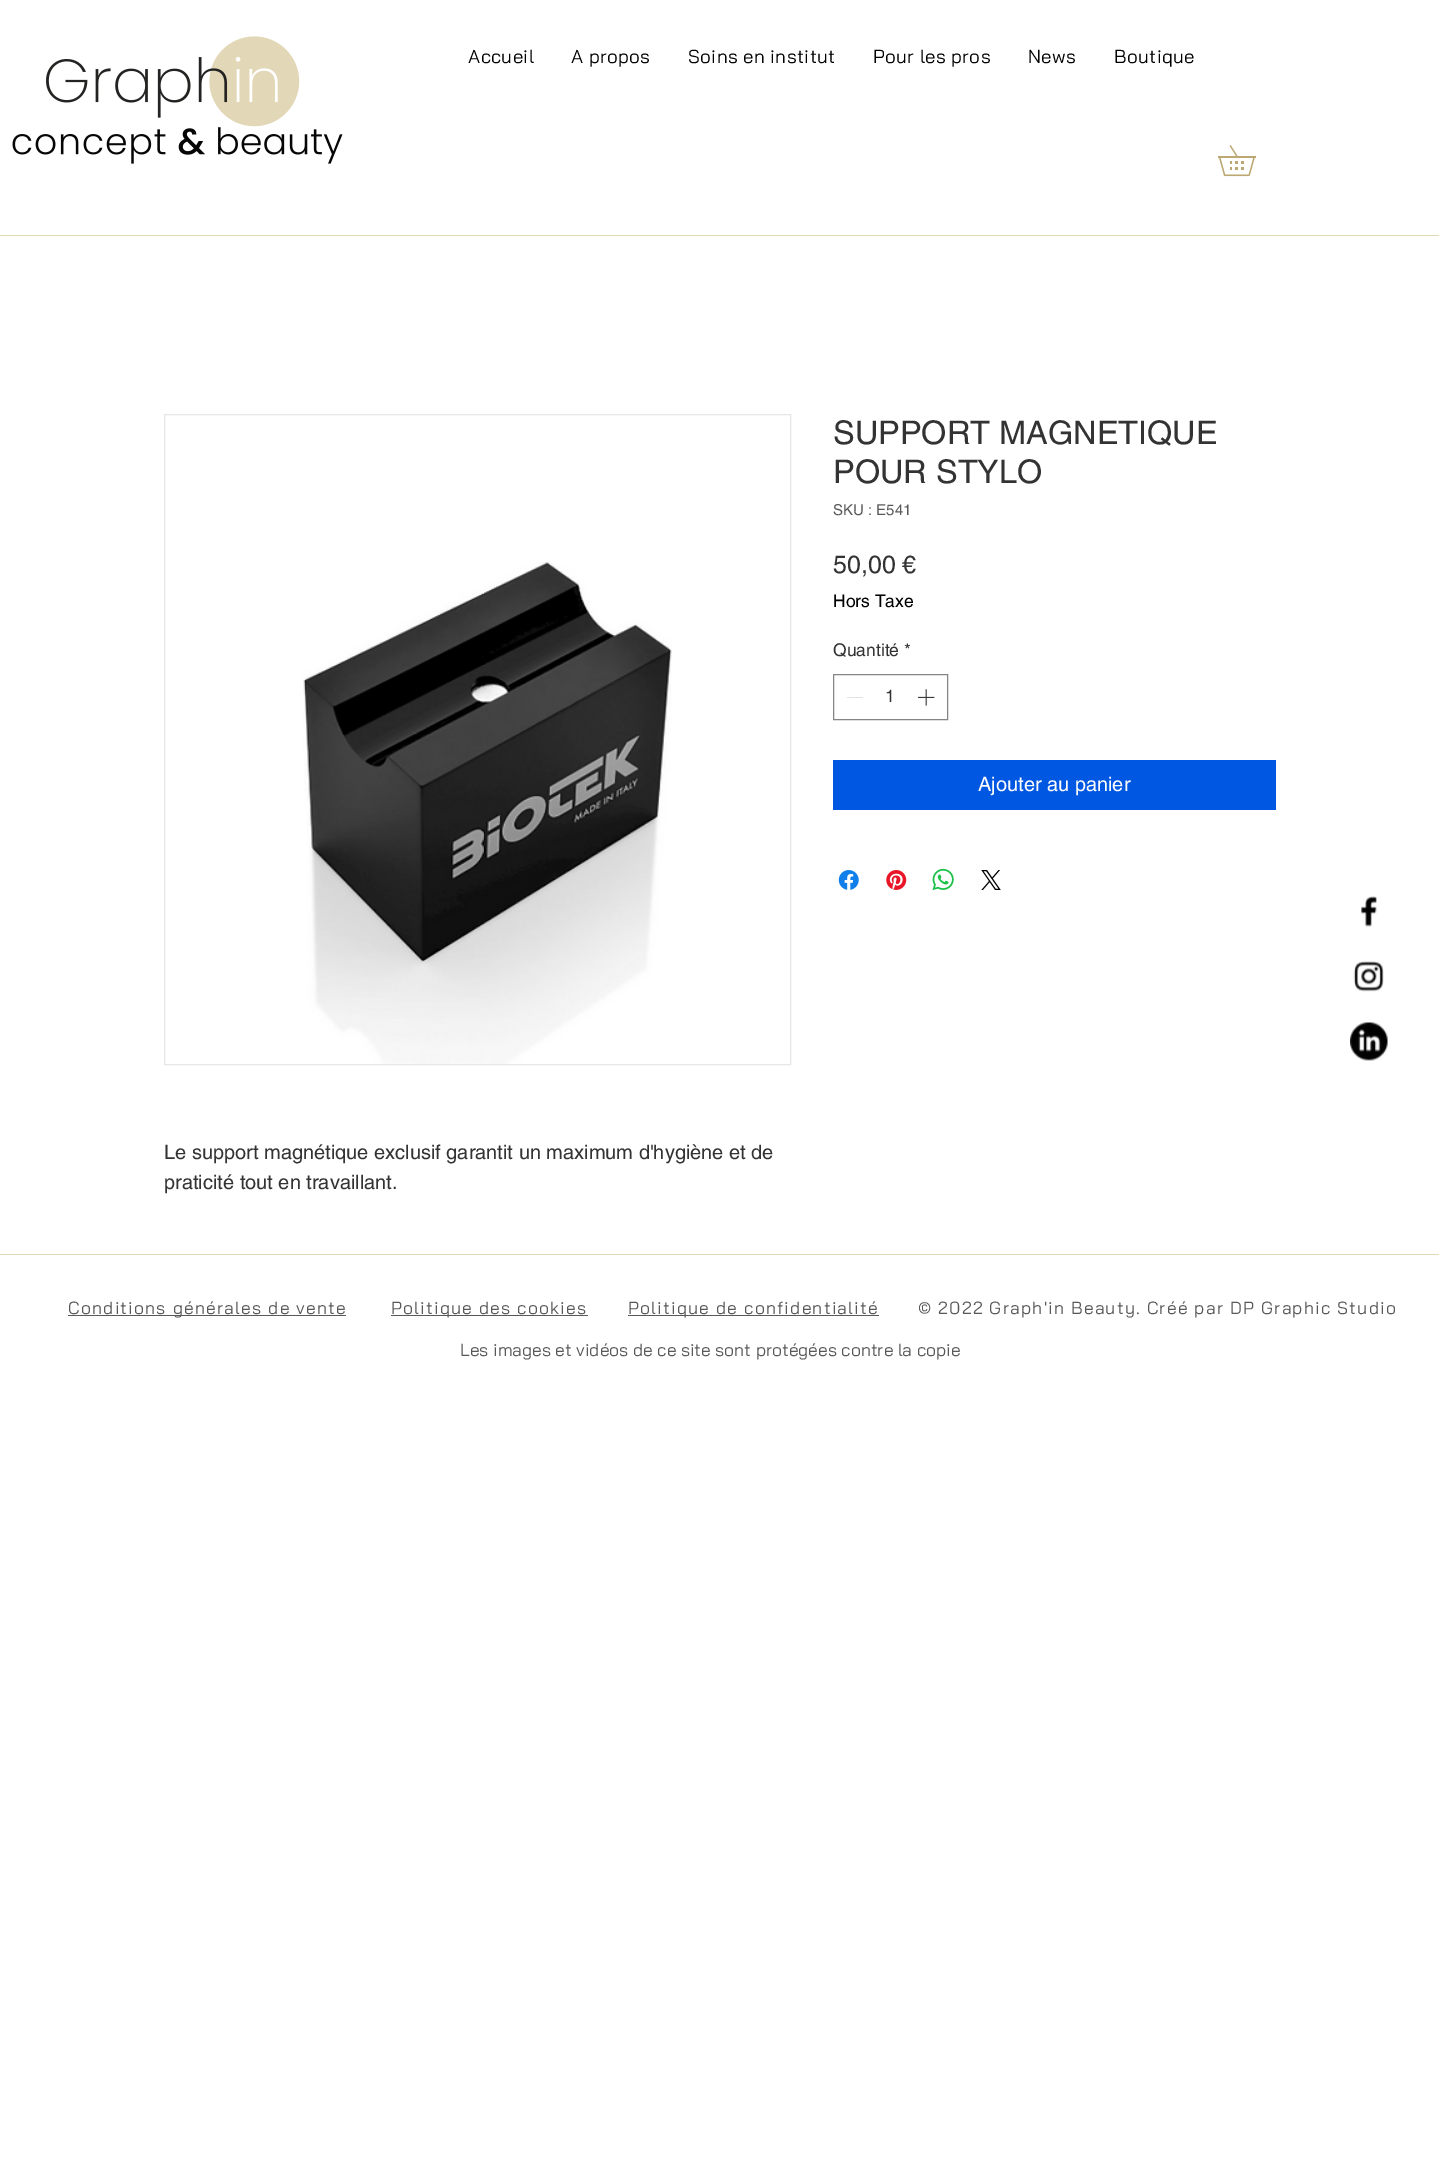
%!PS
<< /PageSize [1439 2164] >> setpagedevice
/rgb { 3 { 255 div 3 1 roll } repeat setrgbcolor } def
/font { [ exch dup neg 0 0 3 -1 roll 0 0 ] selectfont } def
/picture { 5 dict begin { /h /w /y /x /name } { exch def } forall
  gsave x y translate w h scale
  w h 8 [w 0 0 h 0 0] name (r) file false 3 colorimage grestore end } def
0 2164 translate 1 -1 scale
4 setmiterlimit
255 255 255 rgb
0 0 1439 2164 rectfill
(img/1.rgb) 12 36 331 128 picture
(img/2.rgb) 1218 145 38 32 picture
226 215 183 rgb
0 235 1439 1 rectfill
133 133 133 rgb
833.5 674.5 114 45 rectstroke
227 227 227 rgb
847 697 16 1 rectfill
(img/3.rgb) 917 689 18 17 picture
0 87 225 rgb
833 760 443 50 rectfill
(img/4.rgb) 838 870 21 20 picture
(img/5.rgb) 886 870 21 20 picture
(img/6.rgb) 932 868 22 23 picture
(img/7.rgb) 981 870 20 20 picture
232 230 230 rgb
164.5 414.5 626 650 rectstroke
(img/8.rgb) 303 562 369 502 picture
(img/9.rgb) 1361 896 16 31 picture
(img/10.rgb) 1353 961 31 31 picture
(img/11.rgb) 1350 1022 38 39 picture
[
  [0 1254 1439 1 226 215 183]
  [68 1315 278 1 89 89 89]
  [391 1315 197 1 89 89 89]
  [628 1315 251 1 89 89 89]
] { aload pop rgb rectfill } forall
/BaiJamjuree-Regular 18.75 font
0 0 0 rgb
468 63 moveto 0.4 0 (Accueil) ashow
571 63 moveto 0.4 0 (A propos) ashow
688 63 moveto 0.4 0 (Soins en institut) ashow
873 63 moveto 0.4 0 (Pour les pros) ashow
1028 63 moveto 0.4 0 (News) ashow
1114 63 moveto 0.4 0 (Boutique) ashow
/helvetica-Regular 32.5 font
51 51 51 rgb
833 444 moveto (SUPPORT MAGNETIQUE) show
833 483 moveto (POUR STYLO) show
/helvetica-Regular 15 font
89 89 89 rgb
833 515 moveto (SKU : E541) show
/helvetica-Regular 25 font
51 51 51 rgb
833 573 moveto (50,00 €) show
/helvetica-Regular 17.5 font
0 0 0 rgb
833 607 moveto (Hors Taxe) show
51 51 51 rgb
833 656 moveto (Quantité *) show
885 702 moveto (1) show
/helvetica-Regular 20 font
255 255 255 rgb
978 791 moveto (Ajouter au panier) show
51 51 51 rgb
164 1159 moveto (Le support magnétique exclusif garantit un maximum d'hygiène et de) show
164 1189 moveto (praticité tout en travaillant.) show
/BaiJamjuree-Regular 17.5 font
89 89 89 rgb
68 1314 moveto 1.23 0 (Conditions générales de vente) ashow
391 1314 moveto 1.23 0 (Politique des cookies) ashow
628 1314 moveto 1.23 0 (Politique de confidentialité) ashow
918 1314 moveto 1.23 0 (© 2022 Graph'in Beauty. Créé par DP Graphic Studio) ashow
460 1356 moveto (Les images et vidéos de ce site sont protégées contre la copie) show
showpage
